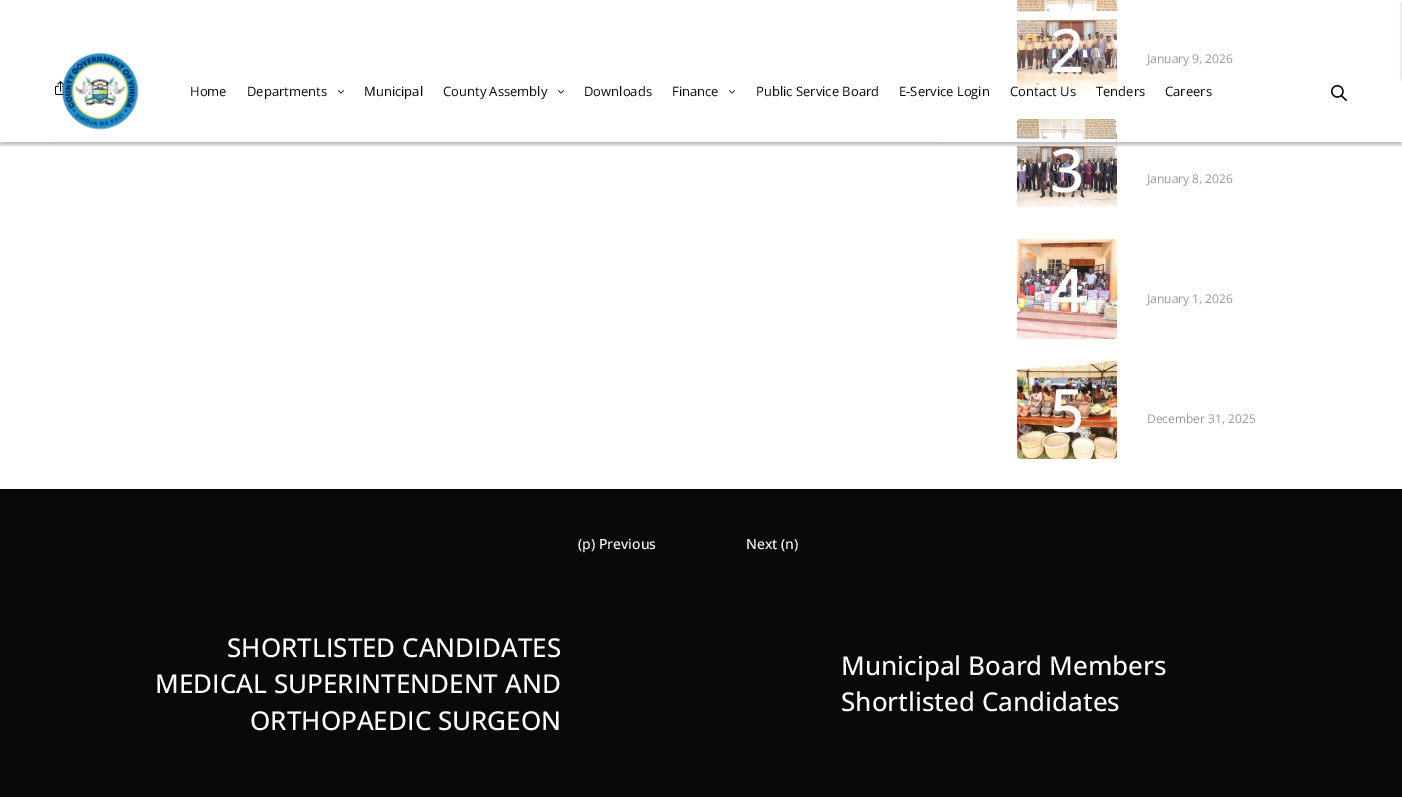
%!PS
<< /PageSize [1402 797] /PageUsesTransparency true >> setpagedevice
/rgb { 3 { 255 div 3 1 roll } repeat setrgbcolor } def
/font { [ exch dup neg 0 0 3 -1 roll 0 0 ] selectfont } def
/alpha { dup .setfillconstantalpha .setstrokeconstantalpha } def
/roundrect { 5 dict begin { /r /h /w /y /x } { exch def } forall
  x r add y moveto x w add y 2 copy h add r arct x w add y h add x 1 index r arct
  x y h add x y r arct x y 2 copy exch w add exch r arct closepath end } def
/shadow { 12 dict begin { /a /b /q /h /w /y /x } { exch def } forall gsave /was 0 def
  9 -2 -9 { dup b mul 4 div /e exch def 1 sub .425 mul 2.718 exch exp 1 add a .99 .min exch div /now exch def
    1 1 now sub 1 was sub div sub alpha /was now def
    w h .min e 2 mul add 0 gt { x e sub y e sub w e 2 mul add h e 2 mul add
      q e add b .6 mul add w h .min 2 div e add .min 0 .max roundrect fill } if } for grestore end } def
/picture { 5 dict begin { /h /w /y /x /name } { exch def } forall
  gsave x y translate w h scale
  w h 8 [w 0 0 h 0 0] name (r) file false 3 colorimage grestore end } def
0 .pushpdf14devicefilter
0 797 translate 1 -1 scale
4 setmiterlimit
255 255 255 rgb
0 0 1402 797 rectfill
239 239 239 rgb
55 141 882 1 rectfill
(img/1.rgb) 55 81 9 14 picture
(img/2.rgb) 1017 0 100 91 picture
(img/3.rgb) 1017 119 100 88 picture
(img/4.rgb) 1017 239 100 100 picture
(img/5.rgb) 1017 359 100 100 picture
9 9 9 rgb
0 489 1402 308 rectfill
0 0 0 rgb
1402 3 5 76 0 1.5 0.25 shadow
gsave
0 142 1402 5 rectclip
0 43 1402 102 0 1.5 0.25 shadow
grestore
(img/6.rgb) 61 52 78 78 picture
(img/7.rgb) 338 90 6 4 picture
(img/7.rgb) 558 90 6 4 picture
(img/7.rgb) 729 90 6 4 picture
(img/8.rgb) 1331 85 16 16 picture
/OpenSans-Medium 60 font
255 255 255 rgb
1050 72 moveto (2) show
/OpenSans-Regular 12 font
151 151 151 rgb
1147 63 moveto (January 9, 2026) show
/OpenSans-Medium 60 font
255 255 255 rgb
1050 192 moveto (3) show
/OpenSans-Regular 12 font
151 151 151 rgb
1147 183 moveto (January 8, 2026) show
/OpenSans-Medium 60 font
255 255 255 rgb
1050 312 moveto (4) show
/OpenSans-Regular 12 font
151 151 151 rgb
1147 303 moveto (January 1, 2026) show
/OpenSans-Medium 60 font
255 255 255 rgb
1050 432 moveto (5) show
/OpenSans-Regular 12 font
151 151 151 rgb
1147 423 moveto (December 31, 2025) show
/OpenSans-Medium 14 font
255 255 255 rgb
578 549 moveto (\(p\) Previous) show
/OpenSans-Medium 26 font
[
  [(SHORTLISTED CANDIDATES) 227 657]
  [(MEDICAL SUPERINTENDENT AND) 155 693]
  [(ORTHOPAEDIC SURGEON) 250 730]
] { aload pop moveto show } forall
/OpenSans-Medium 14 font
746 549 moveto (Next \(n\)) show
/OpenSans-Medium 26 font
841 675 moveto (Municipal Board Members) show
841 711 moveto (Shortlisted Candidates) show
/OpenSans-Regular 13 font
9 9 9 rgb
[
  [(Home) 190 96]
  [(Departments) 247 96]
  [(Municipal) 364 96]
  [(County Assembly) 443 96]
  [(Downloads) 584 96]
  [(Finance) 672 96]
  [(Public Service Board) 756 96]
  [(E-Service Login) 899 96]
  [(Contact Us) 1010 96]
  [(Tenders) 1096 96]
  [(Careers) 1165 96]
] { aload pop moveto show } forall
.poppdf14devicefilter showpage
